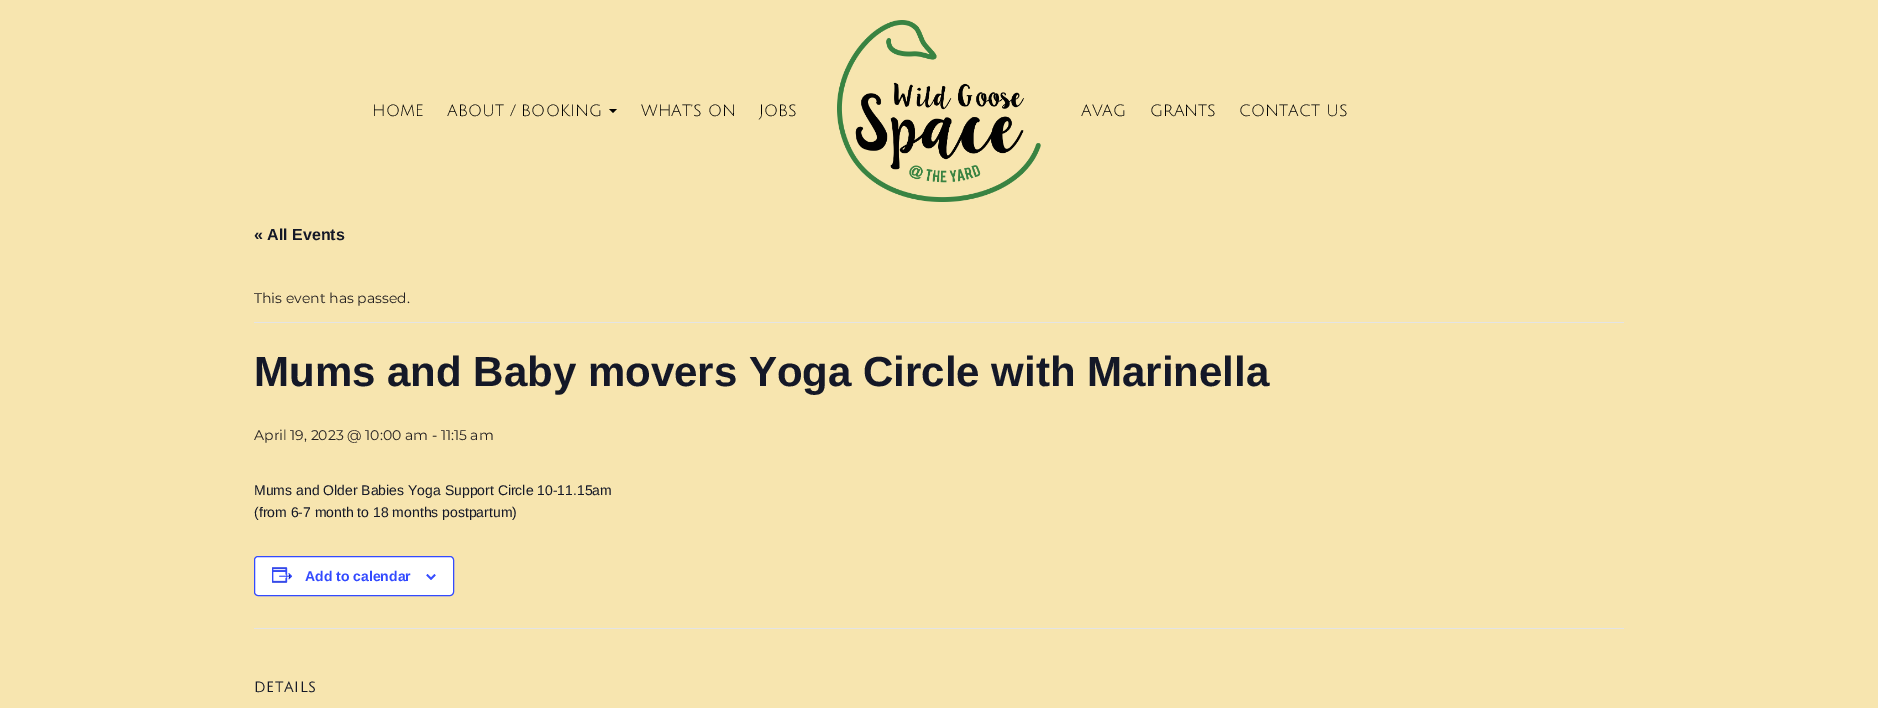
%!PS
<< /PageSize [1878 708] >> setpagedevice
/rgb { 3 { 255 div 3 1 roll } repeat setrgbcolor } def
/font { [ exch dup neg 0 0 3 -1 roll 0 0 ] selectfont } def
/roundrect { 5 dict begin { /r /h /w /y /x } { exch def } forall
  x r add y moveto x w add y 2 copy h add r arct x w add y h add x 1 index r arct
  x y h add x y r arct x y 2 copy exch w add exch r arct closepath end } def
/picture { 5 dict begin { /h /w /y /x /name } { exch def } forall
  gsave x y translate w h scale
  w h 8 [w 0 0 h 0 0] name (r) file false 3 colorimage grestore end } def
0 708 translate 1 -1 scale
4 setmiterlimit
247 229 175 rgb
0 0 1878 708 rectfill
0 0 0 rgb
609 109 moveto 617 109 lineto 613 113 lineto closepath fill
(img/1.rgb) 837 20 204 182 picture
228 228 228 rgb
254 322 1370 1 rectfill
255 255 255 rgb
254.5 556.5 199 39 3.5 roundrect gsave fill grestore
51 74 255 rgb
stroke
(img/2.rgb) 272 567 21 16 picture
(img/3.rgb) 426 574 10 6 picture
228 228 228 rgb
254 628 1370 1 rectfill
/JuliusSansOne-Regular 16 font
0 0 0 rgb
[
  [(HOME) 372 116]
  [(ABOUT / BOOKING) 447 116]
  [(WHAT’S ON) 641 116]
  [(JOBS) 759 116]
  [(AVAG) 1081 116]
  [(GRANTS) 1150 116]
  [(CONTACT US) 1239 116]
] { aload pop moveto show } forall
/LiberationSans-Bold 16 font
20 24 39 rgb
254 240 moveto (« All Events) show
/Montserrat-Regular 14 font
35 31 32 rgb
254 303 moveto (This event has passed.) show
/LiberationSans-Bold 42 font
20 24 39 rgb
254 386 moveto (Mums and Baby movers Yoga Circle with Marinella) show
/Montserrat-Regular 14 font
35 31 32 rgb
254 440 moveto (April 19, 2023 @ 10:00 am - 11:15 am) show
/LiberationSans-Regular 14 font
20 24 39 rgb
254 495 moveto (Mums and Older Babies Yoga Support Circle 10-11.15am) show
254 517 moveto (\(from 6-7 month to 18 months postpartum\)) show
/LiberationSans-Bold 14 font
51 74 255 rgb
305 581 moveto (Add to calendar) show
/JuliusSansOne-Bold 14 font
20 24 39 rgb
254 692 moveto 1 0 (DETAILS) ashow
showpage
